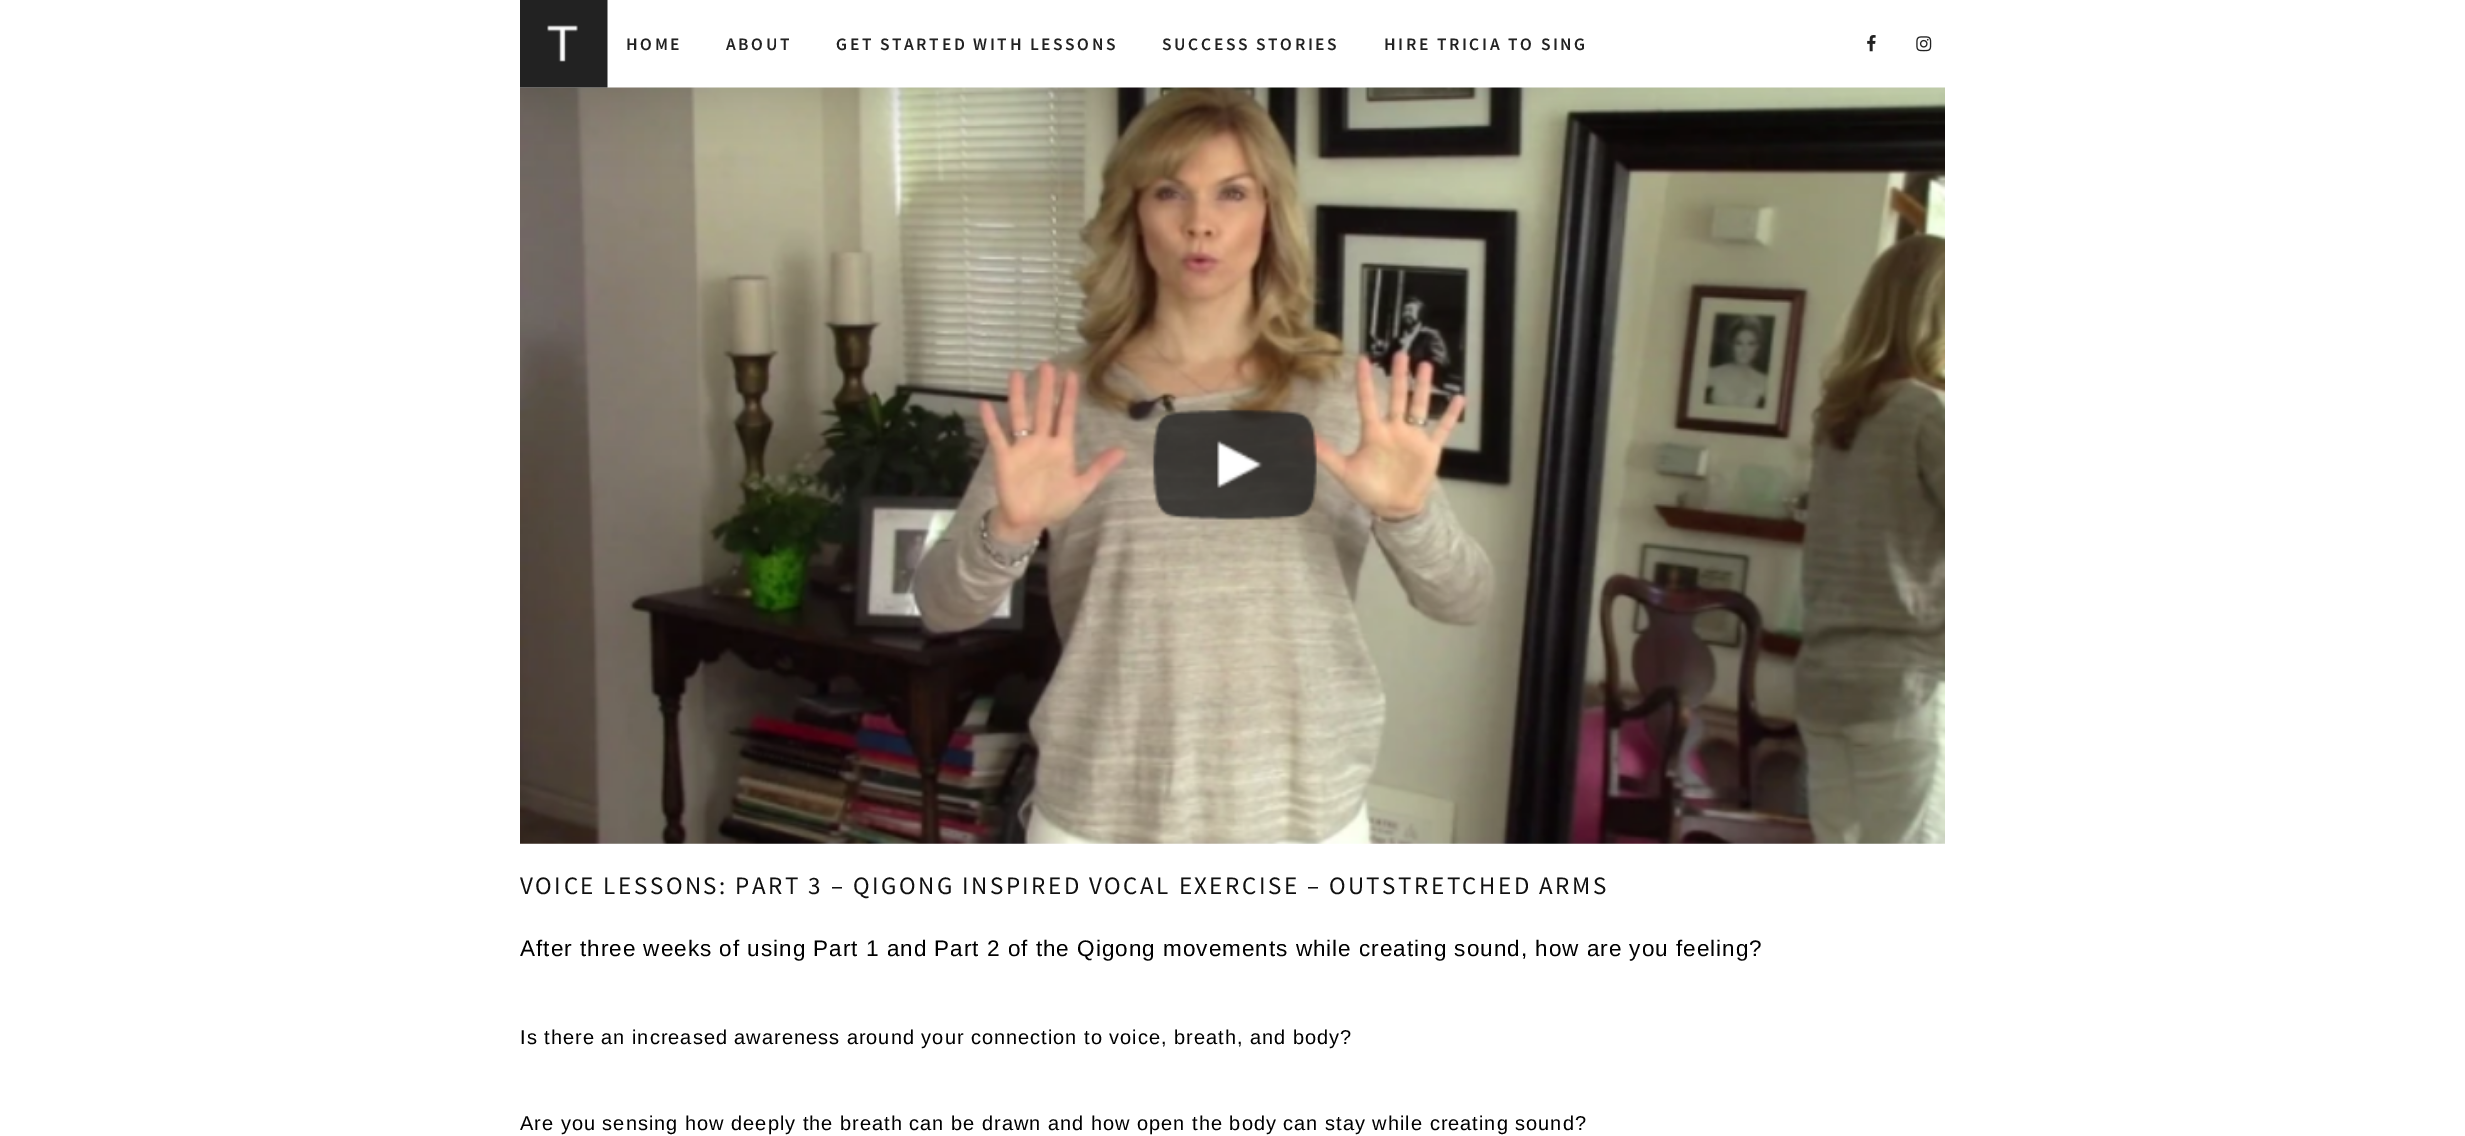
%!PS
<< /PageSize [2465 1136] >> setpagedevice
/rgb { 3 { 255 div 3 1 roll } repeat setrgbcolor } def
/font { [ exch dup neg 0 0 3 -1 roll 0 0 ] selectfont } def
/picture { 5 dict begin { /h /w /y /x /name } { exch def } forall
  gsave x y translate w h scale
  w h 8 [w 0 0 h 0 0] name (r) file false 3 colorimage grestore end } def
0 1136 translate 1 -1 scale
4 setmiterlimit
255 255 255 rgb
0 0 2465 1136 rectfill
(img/4.rgb) 520 87 1425 757 picture
(img/1.rgb) 520 0 88 88 picture
(img/2.rgb) 1867 35 9 17 picture
(img/3.rgb) 1916 36 16 16 picture
/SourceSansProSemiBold-SemiBold 17.5 font
34 34 34 rgb
626 50 moveto 2.6 0 (HOME) ashow
726 50 moveto 2.6 0 (ABOUT) ashow
836 50 moveto 2.6 0 (GET STARTED WITH LESSONS) ashow
1162 50 moveto 2.6 0 (SUCCESS STORIES) ashow
1384 50 moveto 2.6 0 (HIRE TRICIA TO SING) ashow
/SourceSansPro-Regular 25 font
17 17 17 rgb
520 894 moveto 2.5 0 (VOICE LESSONS: PART 3 – QIGONG INSPIRED VOCAL EXERCISE – OUTSTRETCHED ARMS) ashow
/LiberationSans-Regular 22.5 font
0 0 0 rgb
520 956 moveto 1 0 (After three weeks of using Part 1 and Part 2 of the Qigong movements while creating sound, how are you feeling?) ashow
/LiberationSans-Regular 20 font
520 1044 moveto 1 0 (Is there an increased awareness around your connection to voice, breath, and body?) ashow
520 1130 moveto 1 0 (Are you sensing how deeply the breath can be drawn and how open the body can stay while creating sound?) ashow
showpage
